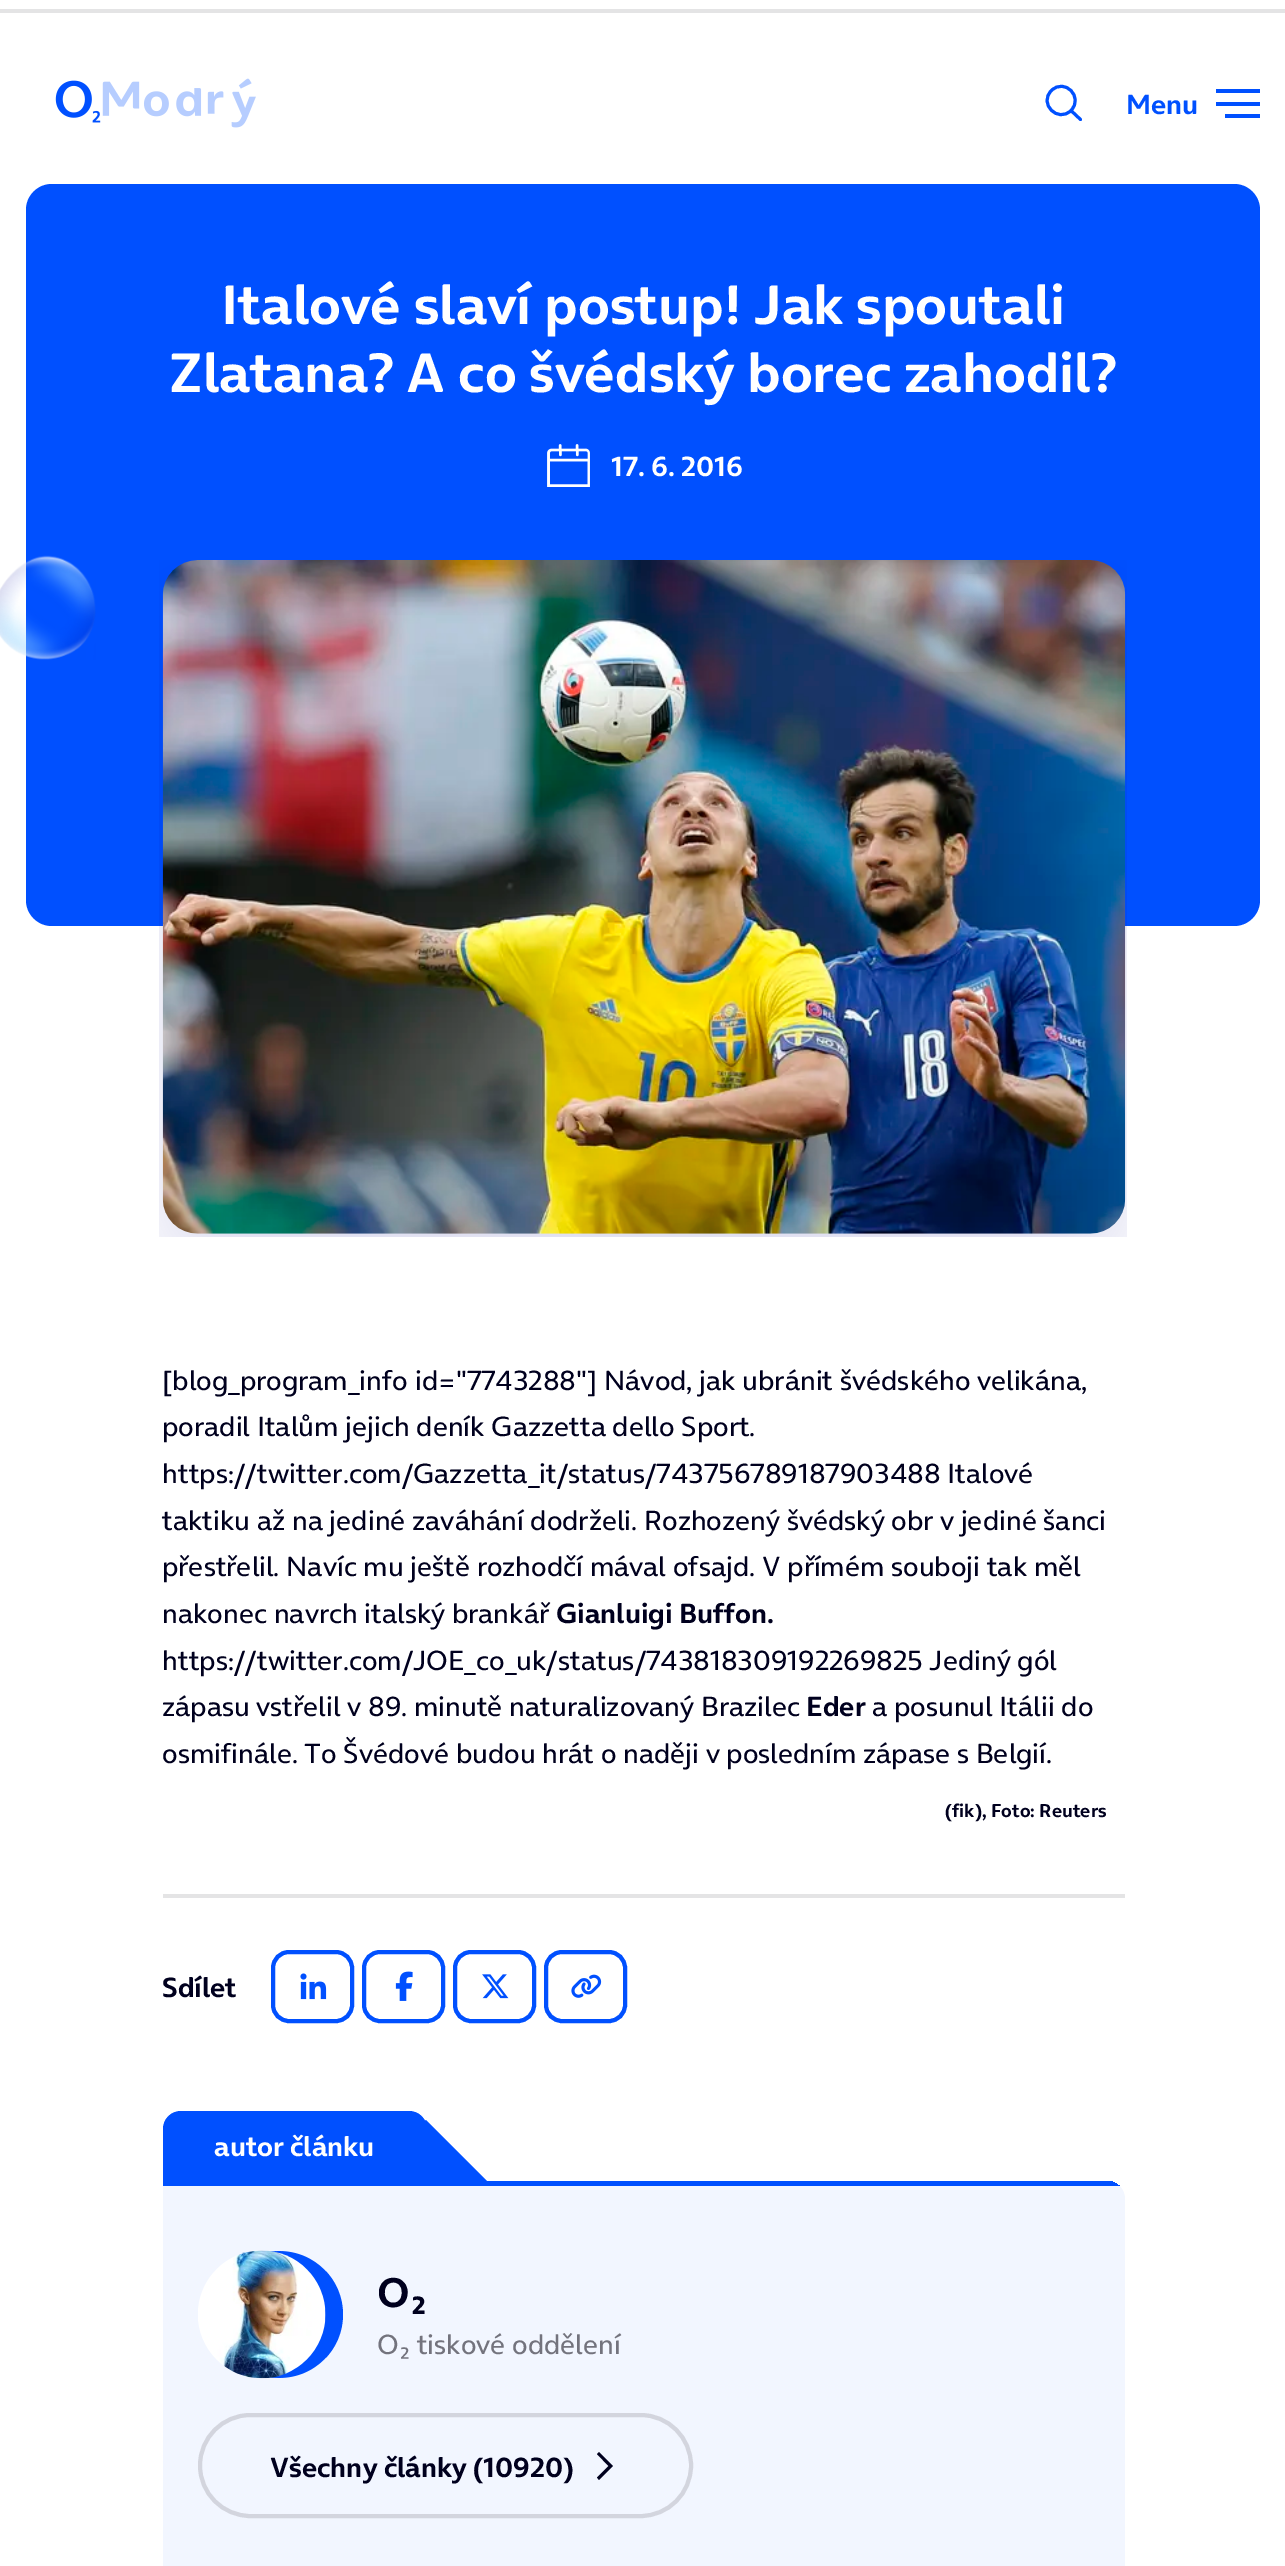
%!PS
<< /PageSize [1285 2566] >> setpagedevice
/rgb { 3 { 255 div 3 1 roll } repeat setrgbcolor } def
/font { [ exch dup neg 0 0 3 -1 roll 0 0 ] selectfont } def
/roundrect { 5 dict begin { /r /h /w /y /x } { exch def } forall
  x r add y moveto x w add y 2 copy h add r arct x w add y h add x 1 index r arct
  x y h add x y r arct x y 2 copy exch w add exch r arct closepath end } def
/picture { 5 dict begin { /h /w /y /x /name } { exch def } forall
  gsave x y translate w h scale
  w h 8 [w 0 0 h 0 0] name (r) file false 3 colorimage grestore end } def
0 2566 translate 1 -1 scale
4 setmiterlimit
255 255 255 rgb
0 0 1285 2566 rectfill
228 228 229 rgb
0 9 1285 4 rectfill
(img/1.rgb) 55 78 201 50 picture
0 80 255 rgb
3 setlinewidth
1 setlinecap
1 setlinejoin
1080.5 119.5 moveto 1071.5 111 lineto 1071 110.5 moveto 1058 123.5 1038 103.5 1051.5 90.5 curveto 1064.5 77.5 1084 97 1071 110.5 curveto closepath stroke
[
  [1216 89 44 4 0 80 255]
  [1216 102 44 4 0 80 255]
  [1225 114 35 4 0 80 255]
] { aload pop rgb rectfill } forall
26 184 1234 742 26 roundrect fill
(img/2.rgb) 547 444 43 43 picture
(img/3.rgb) 159 560 968 677 picture
(img/4.rgb) 0 555 96 105 picture
(img/5.rgb) 912 574 92 98 picture
228 228 229 rgb
163 1894 962 4 rectfill
0 80 255 rgb
4 setlinewidth
0 setlinecap
0 setlinejoin
273 1952 79 69 16 roundrect stroke
(img/6.rgb) 300 1973 27 27 picture
364 1952 79 69 16 roundrect stroke
(img/7.rgb) 395 1971 18 30 picture
455 1952 79 69 16 roundrect stroke
(img/8.rgb) 482 1974 27 25 picture
546 1952 79 69 16 roundrect stroke
(img/9.rgb) 571 1974 31 24 picture
181 2111 moveto 409 2111 lineto 419 2111 427 2119 427 2129 curveto 427 2181 lineto 163 2181 lineto 163 2129 lineto 163 2119 171 2111 181 2111 curveto closepath fill
/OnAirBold-Bold 28 font
1126 114 moveto (Menu) show
/OnAirBold-Bold 56 font
255 255 255 rgb
221 324 moveto (Italové slaví postup! Jak spoutali) show
169 392 moveto (Zlatana? A co švédský borec zahodil?) show
/OnAirBold-Bold 28 font
611 476 moveto (17. 6. 2016) show
/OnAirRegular-Regular 28 font
0 0 30 rgb
[
  [([blog_program_info id="7743288"] Návod, jak ubránit švédského velikána,) 162 1390]
  [(poradil Italům jejich deník Gazzetta dello Sport.) 162 1436]
  [(https://twitter.com/Gazzetta_it/status/743756789187903488 Italové) 162 1483]
  [(taktiku až na jediné zaváhání dodrželi. Rozhozený švédský obr v jediné šanci) 162 1530]
  [(přestřelil. Navíc mu ještě rozhodčí mával ofsajd. V přímém souboji tak měl) 162 1576]
  [(nakonec navrch italský brankář) 162 1623]
] { aload pop moveto show } forall
/OnAirBold-Bold 28 font
556 1623 moveto (Gianluigi Buffon.) show
/OnAirRegular-Regular 28 font
162 1670 moveto (https://twitter.com/JOE_co_uk/status/743818309192269825 Jediný gól) show
162 1716 moveto (zápasu vstřelil v 89. minutě naturalizovaný Brazilec) show
/OnAirBold-Bold 28 font
806 1716 moveto (Eder) show
/OnAirRegular-Regular 28 font
872 1716 moveto (a posunul Itálii do) show
162 1763 moveto (osmifinále. To Švédové budou hrát o naději v posledním zápase s Belgií.) show
/OnAirBold-Bold 18.75 font
945 1817 moveto (\(fik\), Foto: Reuters) show
/OnAirBold-Bold 28 font
162 1997 moveto (Sdílet) show
255 255 255 rgb
214 2156 moveto (autor článku) show
0 80 255 rgb
426 2120 moveto 487 2181 lineto 426 2243 lineto 364 2181 lineto closepath fill
242 246 255 rgb
163 2181 moveto 1107 2181 lineto 1117 2181 1125 2189 1125 2199 curveto 1125 2566 lineto 1125 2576 1117 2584 1107 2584 curveto 181 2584 lineto 171 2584 163 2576 163 2566 curveto closepath fill
gsave
163 2181 moveto 1107 2181 lineto 1117 2181 1125 2189 1125 2199 curveto 1125 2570 lineto 1125 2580 1117 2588 1107 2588 curveto 181 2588 lineto 171 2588 163 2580 163 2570 curveto closepath clip newpath
0 80 255 rgb
163 2181 962 5 rectfill
grestore
0 80 255 rgb
215 2251 128 127 63.5 roundrect fill
(img/10.rgb) 198 2250 128 129 picture
/OnAirBold-Bold 42 font
0 0 30 rgb
377 2307 moveto (O₂) show
/OnAirRegular-Regular 28 font
115 115 125 rgb
377 2354 moveto (O₂ tiskové oddělení) show
211 213 222 rgb
200 2415 491 101 50.5 roundrect stroke
/OnAirBold-Bold 28 font
0 0 30 rgb
270 2477 moveto (Všechny články \(10920\)) show
597 2454 moveto 608.5 2466 lineto 597 2477.5 lineto 599 2480 lineto 613 2466 lineto 599 2452 lineto closepath fill
showpage
